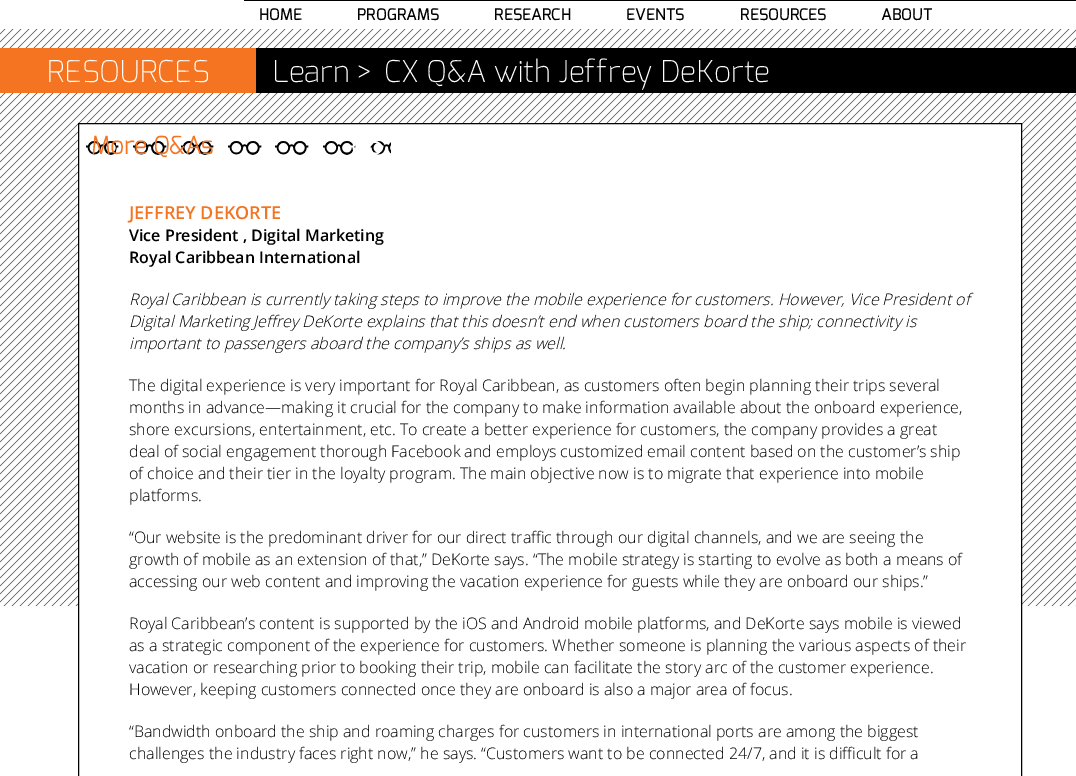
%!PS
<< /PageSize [1076 776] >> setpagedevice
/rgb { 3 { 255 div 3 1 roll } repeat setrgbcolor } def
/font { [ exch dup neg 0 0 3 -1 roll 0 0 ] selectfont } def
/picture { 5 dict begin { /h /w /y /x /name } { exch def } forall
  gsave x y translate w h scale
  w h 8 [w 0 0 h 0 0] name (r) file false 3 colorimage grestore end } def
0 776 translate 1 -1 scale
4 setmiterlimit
255 255 255 rgb
0 0 1076 776 rectfill
0 0 0 rgb
244 0 832 1 rectfill
(img/1.rgb) 0 29 1076 577 picture
[
  [256 48 820 45 0 0 0]
  [0 48 256 45 244 116 33]
  [79 124 942 482 255 255 255]
] { aload pop rgb rectfill } forall
0 0 0 rgb
78.5 123.5 943 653 rectstroke
(img/2.rgb) 86 141 305 14 picture
/Exo-Medium 16 font
[
  [(HOME) 259 20]
  [(PROGRAMS) 357 20]
  [(RESEARCH) 494 20]
  [(EVENTS) 626 20]
  [(RESOURCES) 740 20]
  [(ABOUT) 881 20]
] { aload pop moveto show } forall
/Exo-ExtraLight 30 font
255 255 255 rgb
[
  [(RESOURCES) 47 82]
  [(Learn >) 272 82]
  [(CX Q&A with Jeffrey DeKorte) 384 82]
] { aload pop moveto show } forall
/Exo-Bold 24 font
244 116 33 rgb
91 154 moveto (More Q&As) show
/OpenSans-SemiBold 18 font
129 219 moveto (JEFFREY DEKORTE) show
/OpenSans-SemiBold 16 font
0 0 0 rgb
129 241 moveto (Vice President , Digital Marketing) show
129 263 moveto (Royal Caribbean International) show
/OpenSans-LightItalic 16 font
[
  [(Royal Caribbean is currently taking steps to improve the mobile experience for customers. However, Vice President of) 129 305]
  [(Digital Marketing Jeffrey DeKorte explains that this doesn’t end when customers board the ship; connectivity is) 129 327]
  [(important to passengers aboard the company’s ships as well.) 129 349]
] { aload pop moveto show } forall
/OpenSans-Light 16 font
[
  [(The digital experience is very important for Royal Caribbean, as customers often begin planning their trips several) 129 391]
  [(months in advance—making it crucial for the company to make information available about the onboard experience,) 129 413]
  [(shore excursions, entertainment, etc. To create a better experience for customers, the company provides a great) 129 435]
  [(deal of social engagement thorough Facebook and employs customized email content based on the customer’s ship) 129 457]
  [(of choice and their tier in the loyalty program. The main objective now is to migrate that experience into mobile) 129 479]
  [(platforms.) 129 501]
  [(“Our website is the predominant driver for our direct traffic through our digital channels, and we are seeing the) 129 543]
  [(growth of mobile as an extension of that,” DeKorte says. “The mobile strategy is starting to evolve as both a means of) 129 565]
  [(accessing our web content and improving the vacation experience for guests while they are onboard our ships.”) 129 587]
  [(Royal Caribbean’s content is supported by the iOS and Android mobile platforms, and DeKorte says mobile is viewed) 129 629]
  [(as a strategic component of the experience for customers. Whether someone is planning the various aspects of their) 129 651]
  [(vacation or researching prior to booking their trip, mobile can facilitate the story arc of the customer experience.) 129 673]
  [(However, keeping customers connected once they are onboard is also a major area of focus.) 129 695]
  [(“Bandwidth onboard the ship and roaming charges for customers in international ports are among the biggest) 129 737]
  [(challenges the industry faces right now,” he says. “Customers want to be connected 24/7, and it is difficult for a) 129 759]
] { aload pop moveto show } forall
showpage
